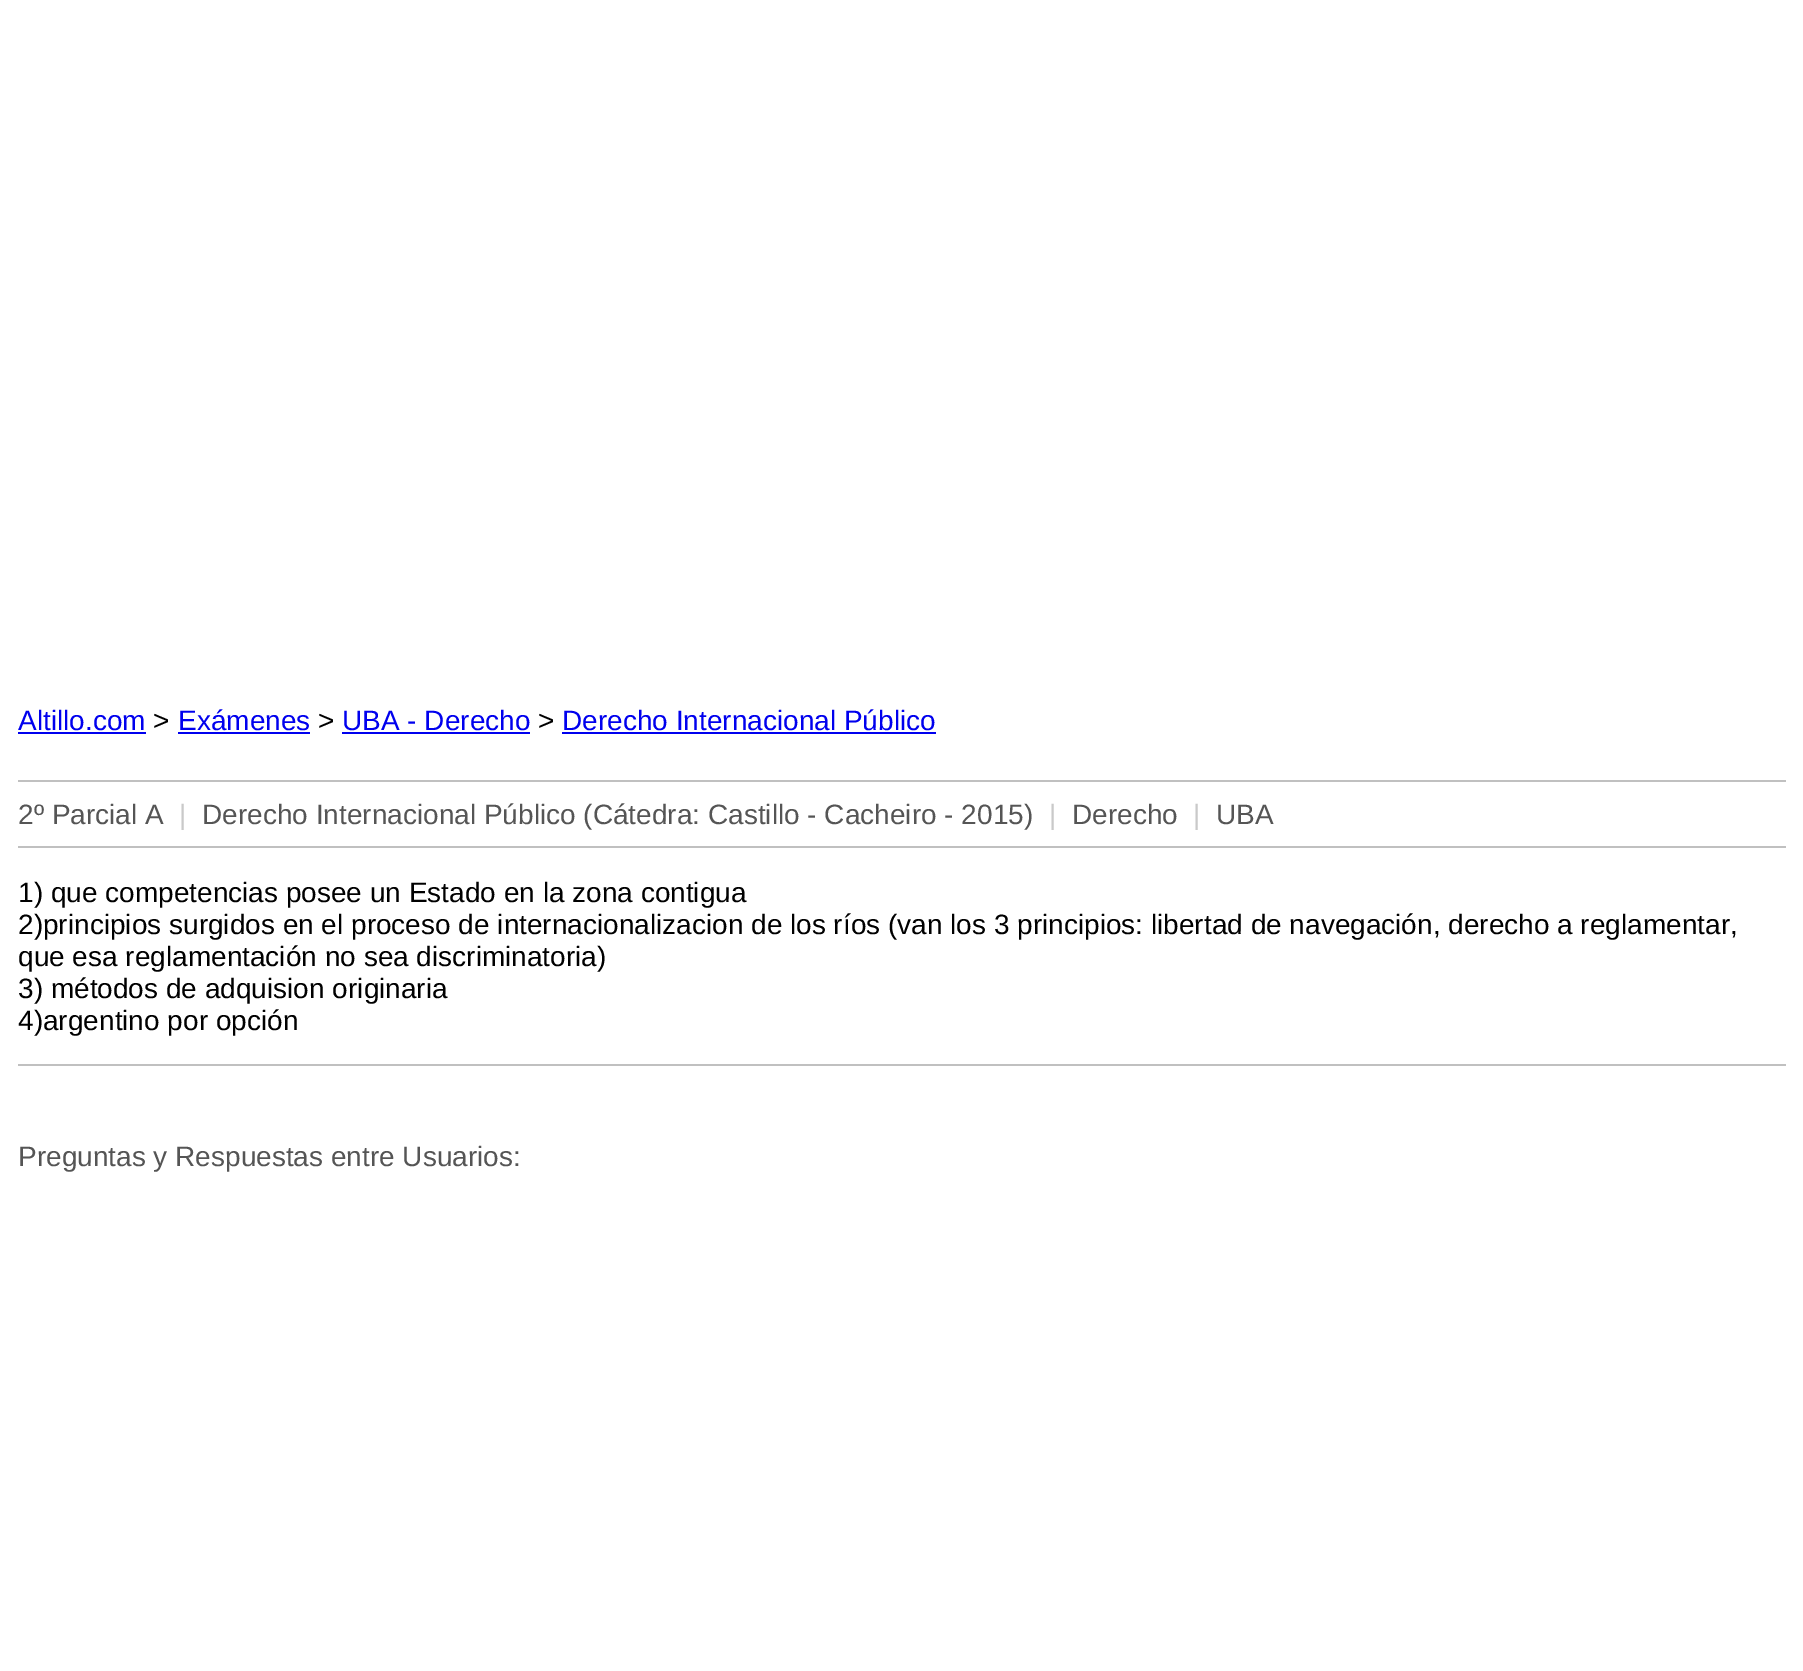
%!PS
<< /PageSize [1803 1671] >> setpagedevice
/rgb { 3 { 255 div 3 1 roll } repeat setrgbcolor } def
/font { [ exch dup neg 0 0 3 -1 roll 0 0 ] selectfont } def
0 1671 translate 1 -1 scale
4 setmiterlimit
255 255 255 rgb
0 0 1803 1671 rectfill
[
  [18 732 128 2 0 0 238]
  [178 732 132 2 0 0 238]
  [342 732 188 2 0 0 238]
  [562 732 374 2 0 0 238]
  [18 780 1768 2 192 192 192]
  [18 846 1768 2 192 192 192]
  [18 1064 1768 2 192 192 192]
] { aload pop rgb rectfill } forall
/LiberationSans-Regular 28 font
0 0 238 rgb
18 730 moveto (Altillo.com) show
0 0 0 rgb
153 730 moveto (>) show
0 0 238 rgb
178 730 moveto (Exámenes) show
0 0 0 rgb
318 730 moveto (>) show
0 0 238 rgb
342 730 moveto (UBA - Derecho) show
0 0 0 rgb
538 730 moveto (>) show
0 0 238 rgb
562 730 moveto (Derecho Internacional Público) show
85 85 85 rgb
18 824 moveto (2º Parcial A) show
201 201 201 rgb
179 824 moveto (|) show
85 85 85 rgb
202 824 moveto (Derecho Internacional Público \(Cátedra: Castillo - Cacheiro - 2015\)) show
201 201 201 rgb
1049 824 moveto (|) show
85 85 85 rgb
1072 824 moveto (Derecho) show
201 201 201 rgb
1193 824 moveto (|) show
85 85 85 rgb
1216 824 moveto (UBA) show
0 0 0 rgb
[
  [(1\) que competencias posee un Estado en la zona contigua) 18 902]
  [(2\)principios surgidos en el proceso de internacionalizacion de los ríos \(van los 3 principios: libertad de navegación, derecho a reglamentar,) 18 934]
  [(que esa reglamentación no sea discriminatoria\)) 18 966]
  [(3\) métodos de adquision originaria) 18 998]
  [(4\)argentino por opción) 18 1030]
] { aload pop moveto show } forall
85 85 85 rgb
18 1166 moveto (Preguntas y Respuestas entre Usuarios:) show
showpage
